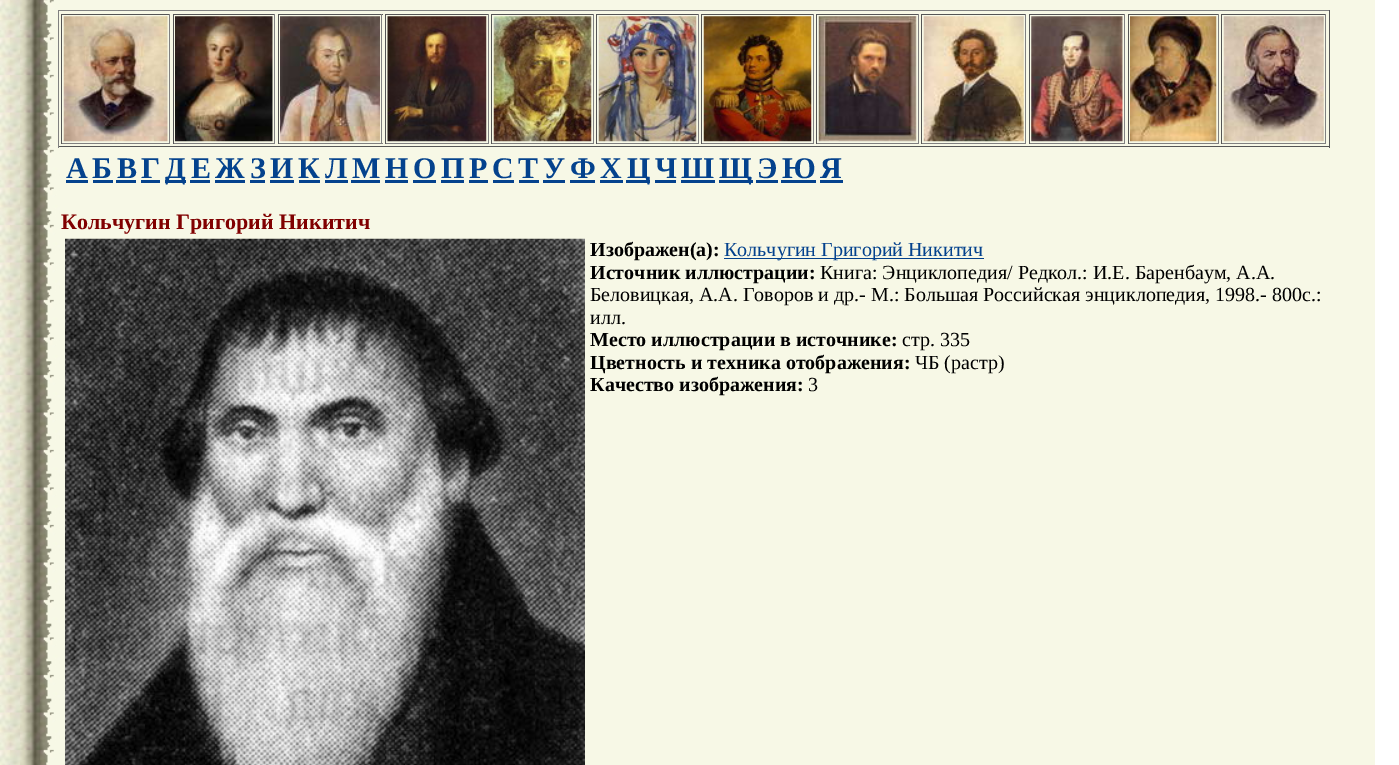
%!PS
<< /PageSize [1399 765] >> setpagedevice
/rgb { 3 { 255 div 3 1 roll } repeat setrgbcolor } def
/font { [ exch dup neg 0 0 3 -1 roll 0 0 ] selectfont } def
/picture { 5 dict begin { /h /w /y /x /name } { exch def } forall
  gsave x y translate w h scale
  w h 8 [w 0 0 h 0 0] name (r) file false 3 colorimage grestore end } def
0 765 translate 1 -1 scale
4 setmiterlimit
255 255 255 rgb
0 0 1399 765 rectfill
(img/1.rgb) 0 0 1375 765 picture
[
  [58 10 1272 1 128 128 128]
  [1329 10 1 138 85 85 85]
  [58 146 1272 1 85 85 85]
  [58 10 1 138 128 128 128]
  [61 14 109 1 85 85 85]
  [169 14 1 130 128 128 128]
  [61 143 109 1 128 128 128]
  [61 14 1 130 85 85 85]
] { aload pop rgb rectfill } forall
(img/2.rgb) 63 16 105 126 picture
[
  [173 14 102 1 85 85 85]
  [274 14 1 130 128 128 128]
  [173 143 102 1 128 128 128]
  [173 14 1 130 85 85 85]
] { aload pop rgb rectfill } forall
(img/3.rgb) 175 16 98 126 picture
[
  [278 14 105 1 85 85 85]
  [381 14 1 130 128 128 128]
  [278 143 105 1 128 128 128]
  [278 14 1 130 85 85 85]
] { aload pop rgb rectfill } forall
(img/4.rgb) 280 16 100 126 picture
[
  [385 14 104 1 85 85 85]
  [488 14 1 130 128 128 128]
  [385 143 104 1 128 128 128]
  [385 14 1 130 85 85 85]
] { aload pop rgb rectfill } forall
(img/5.rgb) 387 16 100 126 picture
[
  [491 14 103 1 85 85 85]
  [593 14 1 130 128 128 128]
  [491 143 103 1 128 128 128]
  [491 14 1 130 85 85 85]
] { aload pop rgb rectfill } forall
(img/6.rgb) 493 16 99 126 picture
[
  [596 14 103 1 85 85 85]
  [698 14 1 130 128 128 128]
  [596 143 103 1 128 128 128]
  [596 14 1 130 85 85 85]
] { aload pop rgb rectfill } forall
(img/7.rgb) 598 16 99 126 picture
[
  [701 14 113 1 85 85 85]
  [813 14 1 130 128 128 128]
  [701 143 113 1 128 128 128]
  [701 14 1 130 85 85 85]
] { aload pop rgb rectfill } forall
(img/8.rgb) 703 16 109 126 picture
[
  [816 14 103 1 85 85 85]
  [918 14 1 130 128 128 128]
  [816 143 103 1 128 128 128]
  [816 14 1 130 85 85 85]
] { aload pop rgb rectfill } forall
(img/9.rgb) 818 16 99 126 picture
[
  [921 14 105 1 85 85 85]
  [1025 14 1 130 128 128 128]
  [921 143 105 1 128 128 128]
  [921 14 1 130 85 85 85]
] { aload pop rgb rectfill } forall
(img/10.rgb) 923 16 101 126 picture
[
  [1029 14 96 1 85 85 85]
  [1124 14 1 130 128 128 128]
  [1029 143 96 1 128 128 128]
  [1029 14 1 130 85 85 85]
] { aload pop rgb rectfill } forall
(img/11.rgb) 1031 16 92 126 picture
[
  [1128 14 91 1 85 85 85]
  [1218 14 1 130 128 128 128]
  [1128 143 91 1 128 128 128]
  [1128 14 1 130 85 85 85]
] { aload pop rgb rectfill } forall
(img/12.rgb) 1130 16 87 126 picture
[
  [1221 14 105 1 85 85 85]
  [1325 14 1 130 128 128 128]
  [1221 143 105 1 128 128 128]
  [1221 14 1 130 85 85 85]
] { aload pop rgb rectfill } forall
(img/13.rgb) 1223 16 101 126 picture
[
  [66 180 22 3 4 66 141]
  [93 180 20 3 4 66 141]
  [116 180 20 3 4 66 141]
  [141 180 19 3 4 66 141]
  [165 180 21 3 4 66 141]
  [190 180 20 3 4 66 141]
  [215 180 30 3 4 66 141]
  [250 180 15 3 4 66 141]
  [270 180 24 3 4 66 141]
  [299 180 21 3 4 66 141]
  [325 180 23 3 4 66 141]
  [351 180 29 3 4 66 141]
  [385 180 23 3 4 66 141]
  [413 180 23 3 4 66 141]
  [441 180 23 3 4 66 141]
  [469 180 19 3 4 66 141]
  [493 180 21 3 4 66 141]
  [519 180 20 3 4 66 141]
  [543 180 22 3 4 66 141]
  [570 180 25 3 4 66 141]
  [600 180 23 3 4 66 141]
  [626 180 24 3 4 66 141]
  [655 180 21 3 4 66 141]
  [681 180 34 3 4 66 141]
  [719 180 34 3 4 66 141]
  [756 180 22 3 4 66 141]
  [781 180 35 3 4 66 141]
  [820 180 23 3 4 66 141]
] { aload pop rgb rectfill } forall
(img/14.rgb) 65 238 520 527 picture
724 258 260 1 rectfill
/LiberationSerif-Bold 30 font
[
  [(А) 66 178]
  [(Б) 92 178]
  [(В) 117 178]
  [(Г) 141 178]
  [(Д) 165 178]
  [(Е) 191 178]
  [(Ж) 215 178]
  [(З) 250 178]
  [(И) 270 178]
  [(К) 298 178]
  [(Л) 325 178]
  [(М) 352 178]
  [(Н) 385 178]
  [(О) 413 178]
  [(П) 441 178]
  [(Р) 469 178]
  [(С) 492 178]
  [(Т) 518 178]
  [(У) 543 178]
  [(Ф) 570 178]
  [(Х) 600 178]
  [(Ц) 627 178]
  [(Ч) 655 178]
  [(Ш) 681 178]
  [(Щ) 719 178]
  [(Э) 757 178]
  [(Ю) 782 178]
  [(Я) 820 178]
] { aload pop moveto show } forall
/LiberationSerif-Bold 22 font
128 0 0 rgb
61 229 moveto (Кольчугин Григорий Никитич) show
/LiberationSerif-Bold 20 font
0 0 0 rgb
590 256 moveto (Изображен\(а\):) show
/LiberationSerif-Regular 20 font
4 66 141 rgb
724 256 moveto (Кольчугин Григорий Никитич) show
/LiberationSerif-Bold 20 font
0 0 0 rgb
590 279 moveto (Источник иллюстрации:) show
/LiberationSerif-Regular 20 font
[
  [(Книга: Энциклопедия/ Редкол.: И.Е. Баренбаум, А.А.) 820 279]
  [(Беловицкая, А.А. Говоров и др.- М.: Большая Российская энциклопедия, 1998.- 800с.:) 590 301]
  [(илл.) 590 324]
] { aload pop moveto show } forall
/LiberationSerif-Bold 20 font
590 346 moveto (Место иллюстрации в источнике:) show
/LiberationSerif-Regular 20 font
902 346 moveto (стр. 335) show
/LiberationSerif-Bold 20 font
590 369 moveto (Цветность и техника отображения:) show
/LiberationSerif-Regular 20 font
915 369 moveto (ЧБ \(растр\)) show
/LiberationSerif-Bold 20 font
590 391 moveto (Качество изображения:) show
/LiberationSerif-Regular 20 font
808 391 moveto (3) show
showpage
